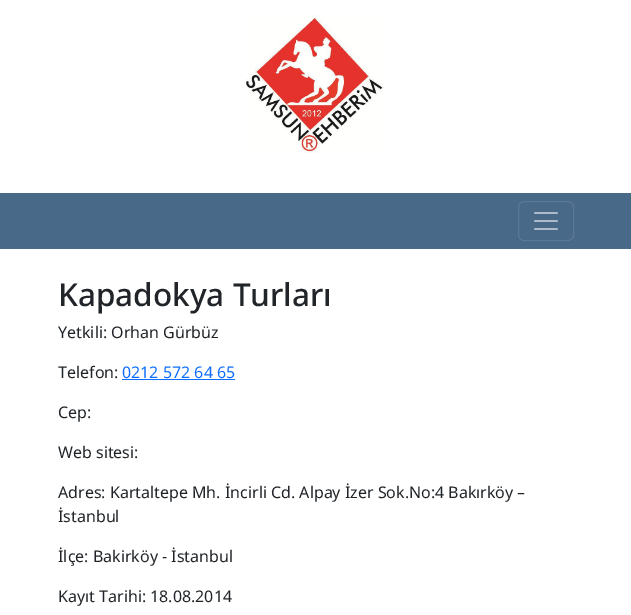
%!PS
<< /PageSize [631 615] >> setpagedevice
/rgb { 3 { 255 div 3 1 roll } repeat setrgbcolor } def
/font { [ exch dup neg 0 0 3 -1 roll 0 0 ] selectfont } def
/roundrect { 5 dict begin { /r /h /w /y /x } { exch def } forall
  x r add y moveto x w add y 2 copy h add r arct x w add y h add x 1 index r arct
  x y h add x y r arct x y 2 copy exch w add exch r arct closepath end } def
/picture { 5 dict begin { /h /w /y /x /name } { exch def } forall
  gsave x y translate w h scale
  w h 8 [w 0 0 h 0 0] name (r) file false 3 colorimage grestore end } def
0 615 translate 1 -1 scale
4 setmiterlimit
255 255 255 rgb
0 0 631 615 rectfill
(img/1.rgb) 245 15 139 138 picture
73 105 137 rgb
0 193 631 56 rectfill
91 120 149 rgb
518.5 201.5 55 39 5.5 roundrect stroke
(img/2.rgb) 534 212 24 18 picture
13 110 253 rgb
122 379 113 1 rectfill
/NotoSans-Medium 31.5 font
33 37 41 rgb
58 306 moveto (Kapadokya Turları) show
/NotoSans-Regular 16 font
58 338 moveto (Yetkili: Orhan Gürbüz) show
58 378 moveto (Telefon:) show
13 110 253 rgb
122 378 moveto (0212 572 64 65) show
33 37 41 rgb
[
  [(Cep:) 58 418]
  [(Web sitesi:) 58 458]
  [(Adres: Kartaltepe Mh. İncirli Cd. Alpay İzer Sok.No:4 Bakırköy –) 58 498]
  [(İstanbul) 58 522]
  [(İlçe: Bakirköy - İstanbul) 58 562]
  [(Kayıt Tarihi: 18.08.2014) 58 602]
] { aload pop moveto show } forall
showpage
